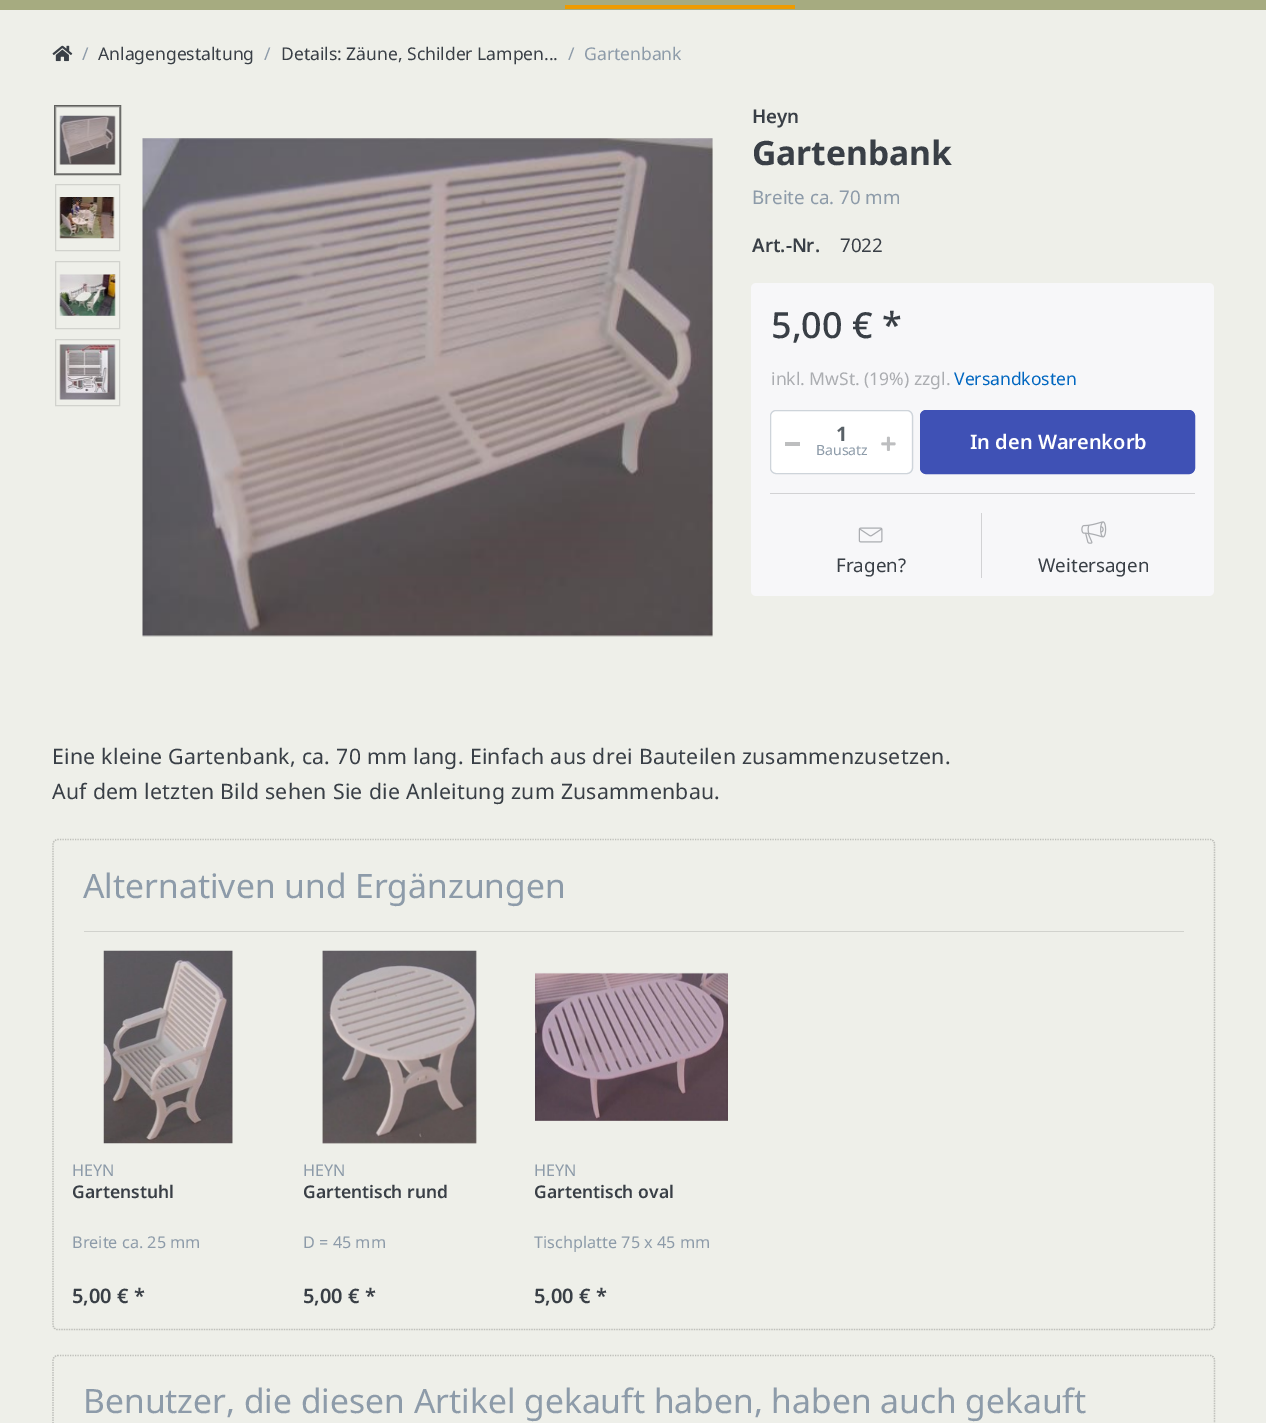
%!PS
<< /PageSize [1266 1423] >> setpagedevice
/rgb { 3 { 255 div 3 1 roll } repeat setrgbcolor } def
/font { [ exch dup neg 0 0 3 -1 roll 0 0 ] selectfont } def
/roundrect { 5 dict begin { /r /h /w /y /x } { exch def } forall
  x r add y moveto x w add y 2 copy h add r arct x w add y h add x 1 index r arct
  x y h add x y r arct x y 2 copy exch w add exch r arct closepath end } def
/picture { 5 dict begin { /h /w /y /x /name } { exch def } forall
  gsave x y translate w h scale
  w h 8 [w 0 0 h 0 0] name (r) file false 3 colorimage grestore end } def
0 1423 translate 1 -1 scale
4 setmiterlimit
238 239 233 rgb
0 0 1266 1423 rectfill
166 171 128 rgb
0 0 1266 10 rectfill
238 155 0 rgb
565 5 230 4 rectfill
(img/1.rgb) 52 45 21 17 picture
95 96 93 rgb
54.5 105.5 66 69 rectstroke
143 143 140 rgb
55.5 106.5 64 67 rectstroke
(img/2.rgb) 59 115 57 50 picture
209 210 205 rgb
55.5 184.5 64 66 rectstroke
(img/3.rgb) 59 197 56 42 picture
55.5 261.5 64 67 rectstroke
(img/4.rgb) 59 274 57 42 picture
55.5 339.5 64 66 rectstroke
(img/5.rgb) 59 344 57 56 picture
(img/6.rgb) 142 138 571 499 picture
247 247 249 rgb
751 283 463 313 5 roundrect fill
255 255 255 rgb
771 411 140 62 5 roundrect fill
206 212 218 rgb
770.5 410.5 142 63 5.5 roundrect stroke
189 190 191 rgb
785 442 15 4 rectfill
(img/7.rgb) 881 436 15 15 picture
63 81 181 rgb
920.5 410.5 274 63 5.5 roundrect gsave fill grestore
stroke
210 210 212 rgb
770 493 425 1 rectfill
981 513 1 65 rectfill
(img/8.rgb) 858 527 25 16 picture
(img/9.rgb) 1081 521 26 23 picture
190 191 186 rgb
1.2 setlinewidth
[1.25 1.25] 0 setdash
57.5 839.5 moveto 1210 839.5 lineto 1212.5 839.5 1214.5 841.5 1214.5 844 curveto 1214.5 1325 lineto 1214.5 1327.5 1212.5 1329.5 1210 1329.5 curveto 57.5 1329.5 lineto 55 1329.5 53 1327.5 53 1325 curveto 53 844 lineto 53 841.5 55 839.5 57.5 839.5 curveto closepath stroke
209 210 205 rgb
84 931 1100 1 rectfill
(img/10.rgb) 103 950 130 194 picture
(img/11.rgb) 322 950 155 194 picture
(img/12.rgb) 535 972 193 149 picture
190 191 186 rgb
57.5 1355.5 moveto 1210 1355.5 lineto 1212.5 1355.5 1214.5 1357.5 1214.5 1360 curveto 1214.5 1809 lineto 1214.5 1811 1212.5 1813 1210 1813 curveto 57.5 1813 lineto 55 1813 53 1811 53 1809 curveto 53 1360 lineto 53 1357.5 55 1355.5 57.5 1355.5 curveto closepath stroke
/NotoSans-Regular 17.5 font
141 155 169 rgb
82 60 moveto (/) show
57 63 70 rgb
98 60 moveto (Anlagengestaltung) show
141 155 169 rgb
264 60 moveto (/) show
57 63 70 rgb
281 60 moveto (Details: Zäune, Schilder Lampen...) show
141 155 169 rgb
568 60 moveto (/) show
584 60 moveto (Gartenbank) show
/NotoSans-SemiBold 18.75 font
57 63 70 rgb
752 123 moveto (Heyn) show
/NotoSans-Bold 33.6 font
752 165 moveto (Gartenbank) show
/NotoSans-Regular 18.75 font
141 155 169 rgb
752 204 moveto (Breite ca. 70 mm) show
/NotoSans-SemiBold 18.75 font
57 63 70 rgb
752 252 moveto (Art.-Nr.) show
/NotoSans-Regular 18.75 font
840 252 moveto (7022) show
/NotoSans-Medium 36 font
771 338 moveto (5,00 € *) show
/NotoSans-Regular 17.5 font
171 173 177 rgb
771 385 moveto (inkl. MwSt. \(19%\) zzgl.) show
0 102 192 rgb
954 385 moveto (Versandkosten) show
/NotoSans-Bold 20 font
89 97 103 rgb
836 441 moveto (1) show
/NotoSans-Regular 14 font
141 155 169 rgb
816 455 moveto (Bausatz) show
/NotoSans-SemiBold 20 font
255 255 255 rgb
970 449 moveto (In den Warenkorb) show
/NotoSans-Regular 18.75 font
57 63 70 rgb
836 572 moveto (Fragen?) show
1038 572 moveto (Weitersagen) show
/NotoSans-Regular 21.25 font
52 764 moveto 0.3 0 (Eine kleine Gartenbank, ca. 70 mm lang. Einfach aus drei Bauteilen zusammenzusetzen.) ashow
52 799 moveto 0.3 0 (Auf dem letzten Bild sehen Sie die Anleitung zum Zusammenbau.) ashow
/NotoSans-Regular 33.6 font
141 155 169 rgb
83 898 moveto (Alternativen und Ergänzungen) show
/NotoSans-Regular 16.25 font
72 1176 moveto (HEYN) show
/NotoSans-SemiBold 17.5 font
57 63 70 rgb
72 1198 moveto (Gartenstuhl) show
/NotoSans-Regular 16.25 font
141 155 169 rgb
72 1248 moveto (Breite ca. 25 mm) show
/NotoSans-SemiBold 20 font
57 63 70 rgb
72 1303 moveto (5,00 € *) show
/NotoSans-Regular 16.25 font
141 155 169 rgb
303 1176 moveto (HEYN) show
/NotoSans-SemiBold 17.5 font
57 63 70 rgb
303 1198 moveto (Gartentisch rund) show
/NotoSans-Regular 16.25 font
141 155 169 rgb
303 1248 moveto (D = 45 mm) show
/NotoSans-SemiBold 20 font
57 63 70 rgb
303 1303 moveto (5,00 € *) show
/NotoSans-Regular 16.25 font
141 155 169 rgb
534 1176 moveto (HEYN) show
/NotoSans-SemiBold 17.5 font
57 63 70 rgb
534 1198 moveto (Gartentisch oval) show
/NotoSans-Regular 16.25 font
141 155 169 rgb
534 1248 moveto (Tischplatte 75 x 45 mm) show
/NotoSans-SemiBold 20 font
57 63 70 rgb
534 1303 moveto (5,00 € *) show
/NotoSans-Regular 33.6 font
141 155 169 rgb
83 1413 moveto (Benutzer, die diesen Artikel gekauft haben, haben auch gekauft) show
showpage
